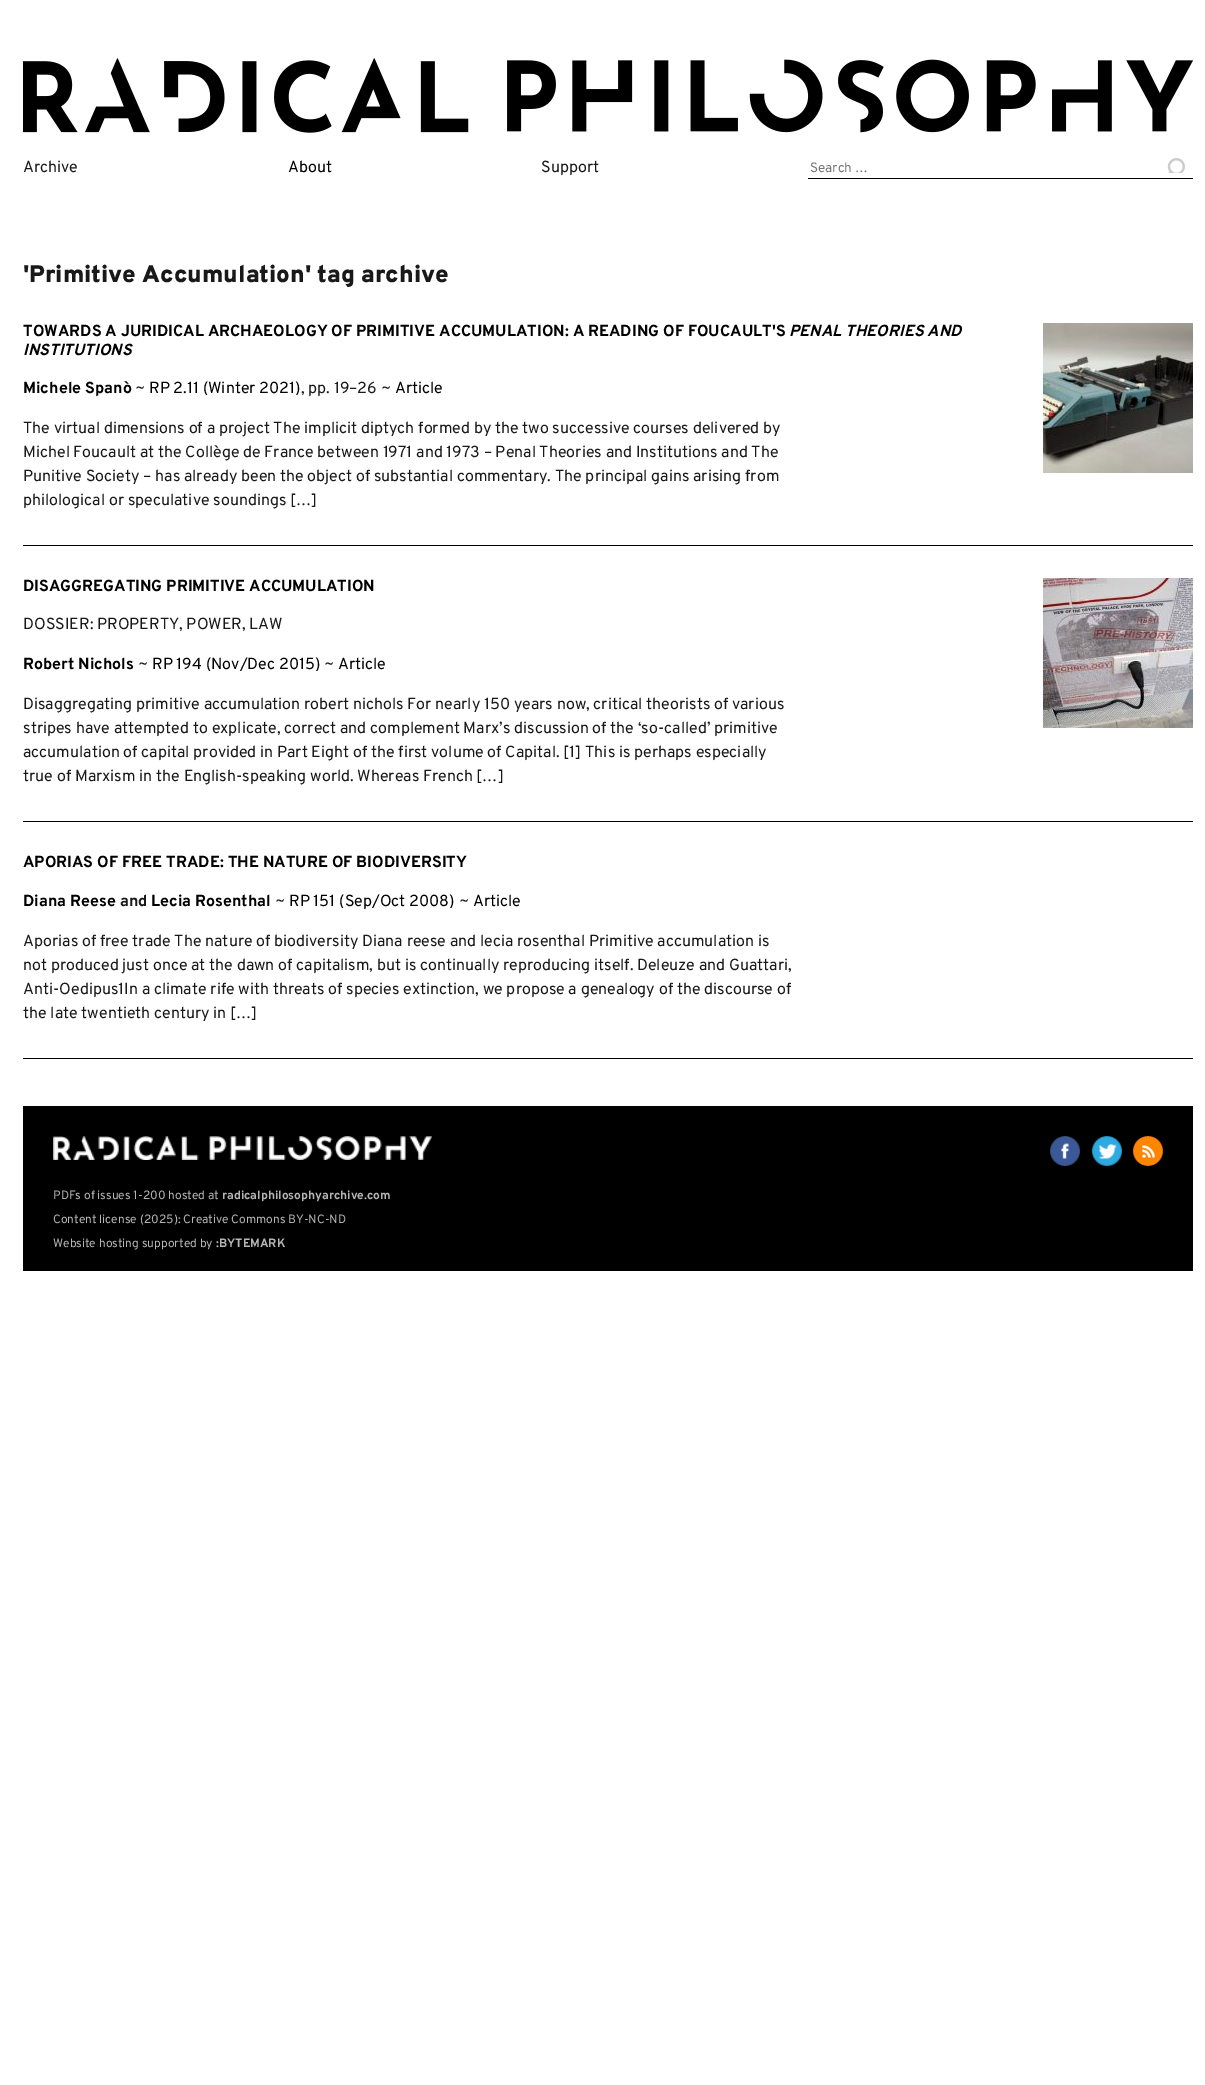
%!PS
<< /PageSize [1205 2085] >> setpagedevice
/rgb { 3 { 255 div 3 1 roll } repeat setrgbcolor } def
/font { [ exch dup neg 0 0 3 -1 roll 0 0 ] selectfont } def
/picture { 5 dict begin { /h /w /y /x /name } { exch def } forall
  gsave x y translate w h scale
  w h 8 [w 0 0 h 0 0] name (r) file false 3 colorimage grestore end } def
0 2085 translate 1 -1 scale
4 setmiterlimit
255 255 255 rgb
0 0 1205 2085 rectfill
(img/1.rgb) 23 58 1170 75 picture
0 0 0 rgb
808 178 385 1 rectfill
(img/2.rgb) 1167 158 18 15 picture
23 545 1170 1 rectfill
(img/3.rgb) 1043 323 150 150 picture
23 821 1170 1 rectfill
(img/4.rgb) 1043 578 150 150 picture
23 1058 1170 1 rectfill
23 1106 1170 165 rectfill
(img/5.rgb) 53 1136 379 24 picture
(img/6.rgb) 1050 1136 30 30 picture
(img/7.rgb) 1092 1136 30 30 picture
(img/8.rgb) 1133 1136 30 30 picture
/Overpass-Regular 16 font
25 25 25 rgb
23 172 moveto (Archive) show
0 0 0 rgb
288 172 moveto (About) show
25 25 25 rgb
541 172 moveto (Support) show
/Overpass-Regular 13.5 font
117 117 117 rgb
810 172 moveto (Search …) show
/Overpass-Black 24 font
25 25 25 rgb
23 282 moveto ('Primitive Accumulation' tag archive) show
/Overpass-Bold 16 font
0 0 0 rgb
23 336 moveto (TOWARDS A JURIDICAL ARCHAEOLOGY OF PRIMITIVE ACCUMULATION: A READING OF FOUCAULT'S) show
/Overpass-BoldItalic 16 font
789 336 moveto (PENAL THEORIES AND) show
23 355 moveto (INSTITUTIONS) show
/Overpass-Bold 16 font
23 393 moveto (Michele Spanò) show
/Overpass-Regular 16 font
25 25 25 rgb
135 393 moveto (~) show
0 0 0 rgb
149 393 moveto (RP 2.11 \(Winter 2021\)) show
25 25 25 rgb
301 393 moveto (, pp. 19–26 ~) show
0 0 0 rgb
395 393 moveto (Article) show
25 25 25 rgb
[
  [(The virtual dimensions of a project The implicit diptych formed by the two successive courses delivered by) 23 433]
  [(Michel Foucault at the Collège de France between 1971 and 1973 – Penal Theories and Institutions and The) 23 457]
  [(Punitive Society – has already been the object of substantial commentary. The principal gains arising from) 23 481]
  [(philological or speculative soundings […]) 23 505]
] { aload pop moveto show } forall
/Overpass-Bold 16 font
0 0 0 rgb
23 591 moveto (DISAGGREGATING PRIMITIVE ACCUMULATION) show
/Overpass-Regular 16 font
25 25 25 rgb
23 629 moveto (DOSSIER: PROPERTY, POWER, LAW) show
/Overpass-Bold 16 font
0 0 0 rgb
23 669 moveto (Robert Nichols) show
/Overpass-Regular 16 font
25 25 25 rgb
138 669 moveto (~) show
0 0 0 rgb
152 669 moveto (RP 194 \(Nov/Dec 2015\)) show
25 25 25 rgb
324 669 moveto (~) show
0 0 0 rgb
338 669 moveto (Article) show
25 25 25 rgb
[
  [(Disaggregating primitive accumulation robert nichols For nearly 150 years now, critical theorists of various) 23 709]
  [(stripes have attempted to explicate, correct and complement Marx’s discussion of the ‘so-called’ primitive) 23 733]
  [(accumulation of capital provided in Part Eight of the first volume of Capital. [1] This is perhaps especially) 23 757]
  [(true of Marxism in the English-speaking world. Whereas French […]) 23 781]
] { aload pop moveto show } forall
/Overpass-Bold 16 font
0 0 0 rgb
23 867 moveto (APORIAS OF FREE TRADE: THE NATURE OF BIODIVERSITY) show
23 906 moveto (Diana Reese) show
25 25 25 rgb
120 906 moveto (and) show
0 0 0 rgb
151 906 moveto (Lecia Rosenthal) show
/Overpass-Regular 16 font
25 25 25 rgb
275 906 moveto (~) show
0 0 0 rgb
289 906 moveto (RP 151 \(Sep/Oct 2008\)) show
25 25 25 rgb
459 906 moveto (~) show
0 0 0 rgb
473 906 moveto (Article) show
25 25 25 rgb
[
  [(Aporias of free trade The nature of biodiversity Diana reese and lecia rosenthal Primitive accumulation is) 23 946]
  [(not produced just once at the dawn of capitalism, but is continually reproducing itself. Deleuze and Guattari,) 23 970]
  [(Anti-Oedipus1In a climate rife with threats of species extinction, we propose a genealogy of the discourse of) 23 994]
  [(the late twentieth century in […]) 23 1018]
] { aload pop moveto show } forall
/Overpass-Regular 12 font
181 181 181 rgb
53 1199 moveto (PDFs of issues 1-200 hosted at) show
/Overpass-Bold 12 font
222 1199 moveto (radicalphilosophyarchive.com) show
/Overpass-Regular 12 font
53 1223 moveto (Content license \(2025\): Creative Commons BY-NC-ND) show
53 1247 moveto (Website hosting supported by) show
/Overpass-Bold 12 font
216 1247 moveto (:BYTEMARK) show
showpage
